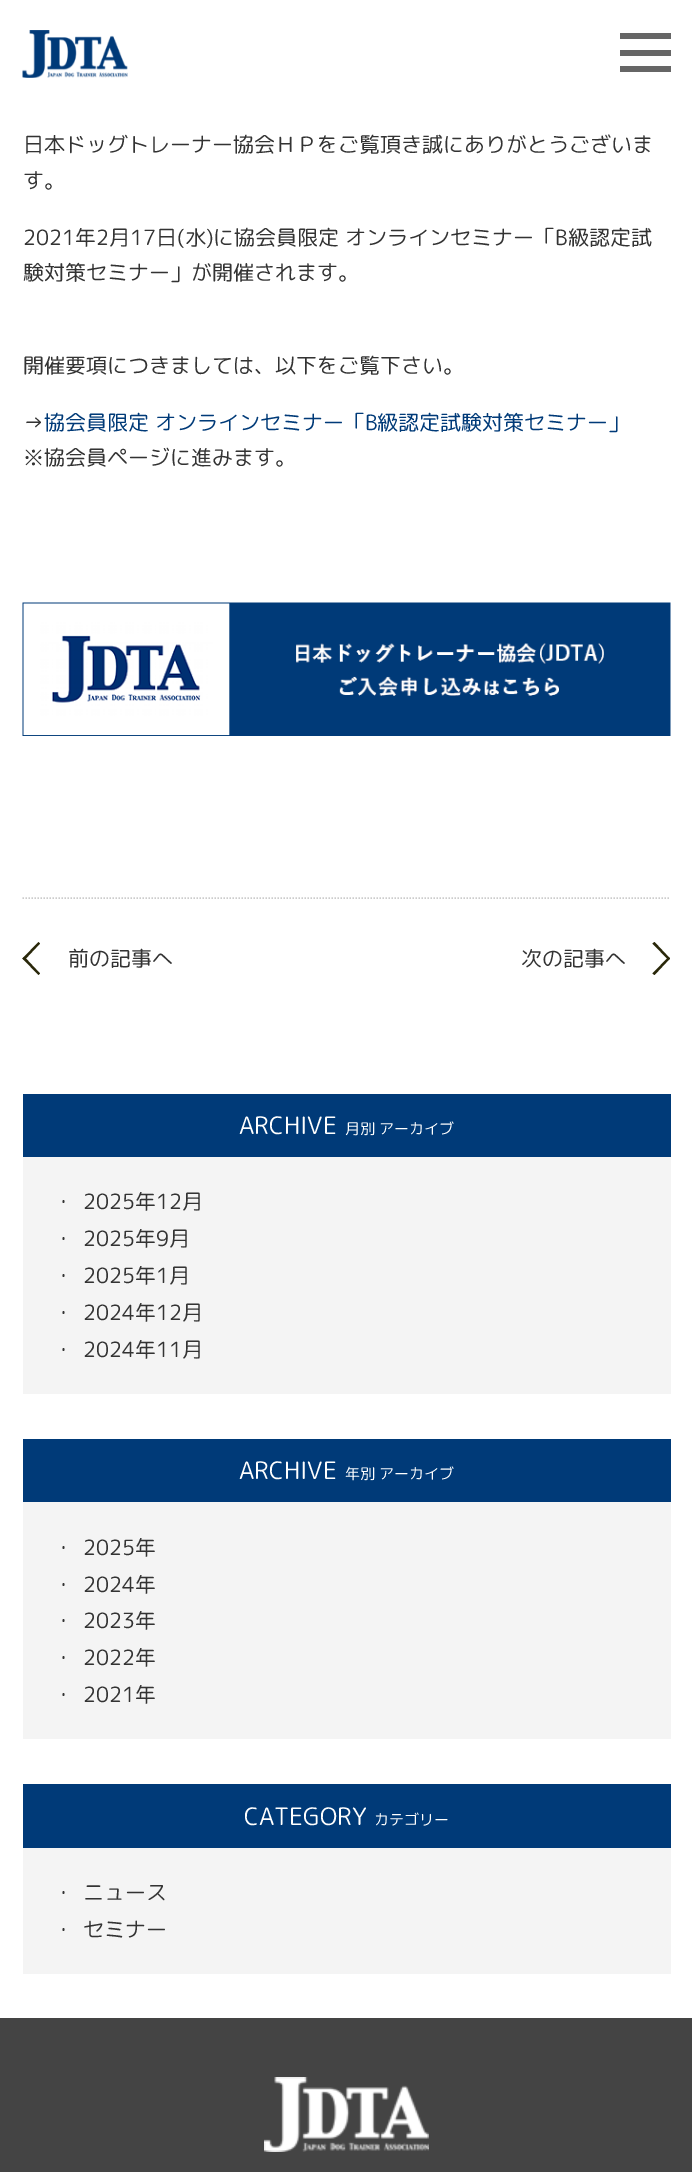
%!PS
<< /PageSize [692 2172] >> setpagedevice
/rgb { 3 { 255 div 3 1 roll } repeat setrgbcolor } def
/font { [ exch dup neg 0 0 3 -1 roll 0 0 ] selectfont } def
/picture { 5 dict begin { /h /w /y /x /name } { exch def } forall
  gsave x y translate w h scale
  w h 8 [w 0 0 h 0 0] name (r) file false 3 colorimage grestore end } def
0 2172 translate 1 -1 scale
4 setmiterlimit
255 255 255 rgb
0 0 692 2172 rectfill
(img/1.rgb) 22 30 106 48 picture
[
  [620 33 51 6 102 102 102]
  [620 50 51 6 102 102 102]
  [620 66 51 6 102 102 102]
] { aload pop rgb rectfill } forall
(img/2.rgb) 22 602 649 134 picture
204 204 204 rgb
1.5 setlinewidth
[1.5 1.5] 0 setdash
22.5 898 moveto 670.5 898 lineto stroke
41 39 9 rgb
22.5 958.5 moveto 38.5 942 lineto 40 943.5 lineto 24.5 960 lineto closepath fill
22.5 958.5 moveto 24.5 957 lineto 40 973.5 lineto 38.5 975 lineto closepath fill
652.5 943.5 moveto 654.5 942 lineto 670 958.5 lineto 668.5 960 lineto closepath fill
652.5 973.5 moveto 668.5 957 lineto 670 958.5 lineto 654.5 975 lineto closepath fill
[
  [23 1094 648 63 0 58 120]
  [23 1157 648 237 244 244 244]
  [23 1439 648 63 0 58 120]
  [23 1502 648 237 244 244 244]
  [23 1784 648 64 0 58 120]
  [23 1848 648 126 244 244 244]
  [0 2018 692 154 68 68 68]
] { aload pop rgb rectfill } forall
(img/3.rgb) 264 2077 165 75 picture
/RoundedMplus1c-Regular 21 font
51 51 51 rgb
[
  [(日本ドッグトレーナー協会ＨＰをご覧頂き誠にありがとうございま) 23 152]
  [(す。) 23 188]
  [(2021年2月17日\(水\)に協会員限定 オンラインセミナー「B級認定試) 23 245]
  [(験対策セミナー」が開催されます。) 23 280]
  [(開催要項につきましては、以下をご覧下さい。) 23 373]
  [(→) 23 430]
] { aload pop moveto show } forall
0 58 120 rgb
44 430 moveto (協会員限定 オンラインセミナー「B級認定試験対策セミナー」) show
51 51 51 rgb
[
  [(※協会員ページに進みます。) 23 465]
  [(前の記事へ) 68 966]
  [(次の記事へ) 521 966]
] { aload pop moveto show } forall
/RoundedMplus1c-Regular 24 font
255 255 255 rgb
239 1134 moveto (ARCHIVE) show
/RoundedMplus1c-Regular 15 font
345 1134 moveto (月別 アーカイブ) show
/RoundedMplus1c-Regular 21 font
51 51 51 rgb
[
  [(・) 53 1209]
  [(2025年12月) 83 1209]
  [(・) 53 1246]
  [(2025年9月) 83 1246]
  [(・) 53 1283]
  [(2025年1月) 83 1283]
  [(・) 53 1320]
  [(2024年12月) 83 1320]
  [(・) 53 1357]
  [(2024年11月) 83 1357]
] { aload pop moveto show } forall
/RoundedMplus1c-Regular 24 font
255 255 255 rgb
239 1479 moveto (ARCHIVE) show
/RoundedMplus1c-Regular 15 font
345 1479 moveto (年別 アーカイブ) show
/RoundedMplus1c-Regular 21 font
51 51 51 rgb
[
  [(・) 53 1555]
  [(2025年) 83 1555]
  [(・) 53 1592]
  [(2024年) 83 1592]
  [(・) 53 1628]
  [(2023年) 83 1628]
  [(・) 53 1665]
  [(2022年) 83 1665]
  [(・) 53 1702]
  [(2021年) 83 1702]
] { aload pop moveto show } forall
/RoundedMplus1c-Regular 24 font
255 255 255 rgb
244 1825 moveto (CATEGORY) show
/RoundedMplus1c-Regular 15 font
374 1825 moveto (カテゴリー) show
/RoundedMplus1c-Regular 21 font
51 51 51 rgb
[
  [(・) 53 1900]
  [(ニュース) 83 1900]
  [(・) 53 1937]
  [(セミナー) 83 1937]
] { aload pop moveto show } forall
showpage
